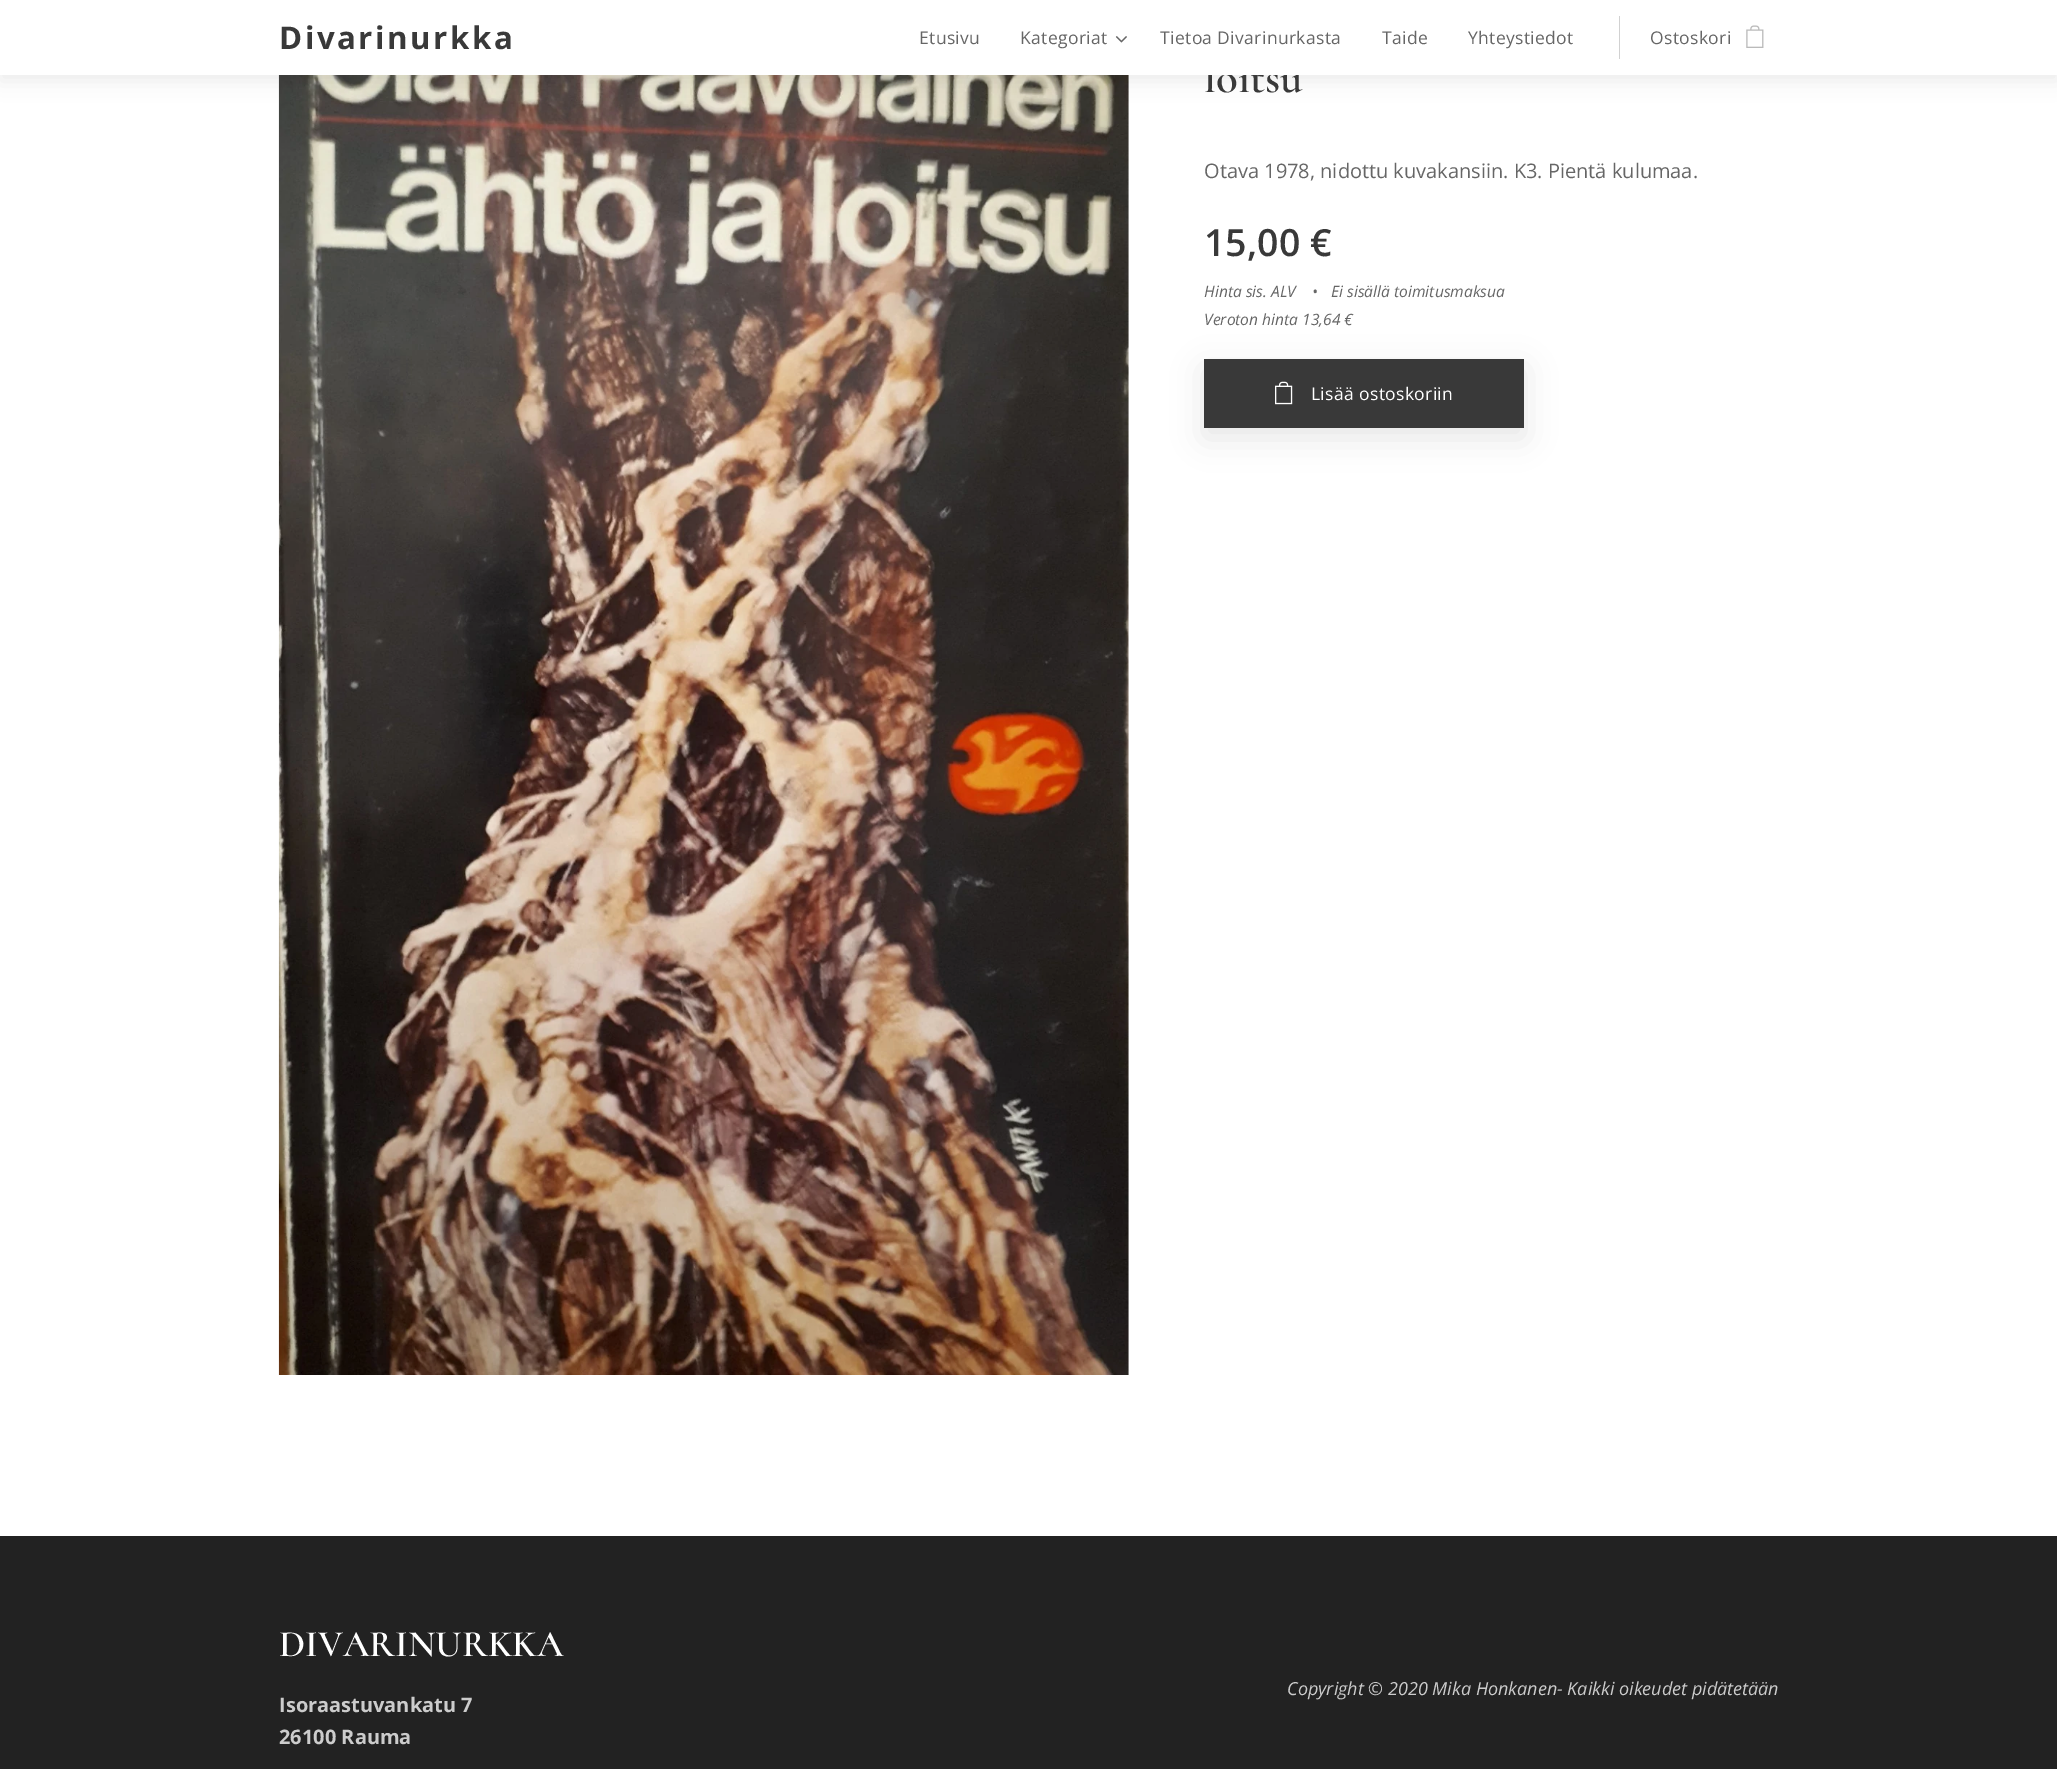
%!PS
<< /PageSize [2057 1769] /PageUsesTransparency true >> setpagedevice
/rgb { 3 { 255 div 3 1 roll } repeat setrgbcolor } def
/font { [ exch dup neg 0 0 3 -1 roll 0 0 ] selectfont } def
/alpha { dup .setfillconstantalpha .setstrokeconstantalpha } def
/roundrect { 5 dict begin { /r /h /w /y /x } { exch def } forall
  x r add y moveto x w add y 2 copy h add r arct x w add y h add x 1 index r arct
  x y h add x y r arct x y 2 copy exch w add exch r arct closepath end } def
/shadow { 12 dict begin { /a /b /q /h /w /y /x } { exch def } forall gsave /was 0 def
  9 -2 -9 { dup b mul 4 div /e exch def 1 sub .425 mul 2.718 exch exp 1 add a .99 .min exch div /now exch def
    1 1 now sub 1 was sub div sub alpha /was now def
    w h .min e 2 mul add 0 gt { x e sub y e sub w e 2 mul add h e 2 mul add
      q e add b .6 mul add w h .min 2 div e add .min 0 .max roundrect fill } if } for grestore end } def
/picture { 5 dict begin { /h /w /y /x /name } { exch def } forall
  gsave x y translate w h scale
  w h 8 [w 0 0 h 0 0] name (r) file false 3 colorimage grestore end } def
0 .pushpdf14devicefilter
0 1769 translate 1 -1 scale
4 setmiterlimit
255 255 255 rgb
0 0 2057 1769 rectfill
(img/3.rgb) 278 75 851 1300 picture
0 0 0 rgb
0 6 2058 75 0 9.5 0.07 shadow
1204 369 320 69 0 15.5 0.1 shadow
57 57 57 rgb
1204 359 320 69 rectfill
(img/4.rgb) 1275 381 18 24 picture
34 34 34 rgb
0 1536 2057 233 rectfill
/Cormorant-SemiBold 45 font
57 57 57 rgb
1204 92 moveto (loitsu) show
255 255 255 rgb
0 0 2057 75 rectfill
(img/2.rgb) 1746 25 18 23 picture
/OpenSans-Regular 17.5 font
102 102 102 rgb
1650 44 moveto 0.35 0 (Ostoskori) ashow
209 209 209 rgb
1619 16 1 43 rectfill
102 102 102 rgb
1468 44 moveto 0.35 0 (Yhteystiedot) ashow
1382 44 moveto 0.35 0 (Taide) ashow
1160 44 moveto 0.35 0 (Tietoa Divarinurkasta) ashow
(img/1.rgb) 1115 36 12 7 picture
1020 44 moveto 0.35 0 (Kategoriat) ashow
919 44 moveto 0.35 0 (Etusivu) ashow
/OpenSans-Bold 31.25 font
57 57 57 rgb
279 49 moveto 2.5 0 (Divarinurkka) ashow
/OpenSans-Regular 20 font
102 102 102 rgb
1204 178 moveto (Otava 1978, nidottu kuvakansiin. K3. Pientä kulumaa.) show
/OpenSans-SemiBold 37.5 font
57 57 57 rgb
1204 256 moveto (15,00 €) show
/OpenSans-Italic 15.6 font
102 102 102 rgb
[
  [(Hinta sis. ALV) 1204 297]
  [(•) 1312 297]
  [(Ei sisällä toimitusmaksua) 1331 297]
  [(Veroton hinta 13,64 €) 1204 325]
] { aload pop moveto show } forall
/OpenSans-Regular 17.5 font
255 255 255 rgb
1311 400 moveto 0.35 0 (Lisää ostoskoriin) ashow
/Cormorant-SemiBold 37.5 font
279 1656 moveto (DIVARINURKKA) show
/OpenSans-Bold 20 font
204 204 204 rgb
279 1712 moveto (Isoraastuvankatu 7) show
279 1744 moveto (26100 Rauma) show
/OpenSans-Italic 18 font
1287 1695 moveto (Copyright © 2020 Mika Honkanen- Kaikki oikeudet pidätetään) show
.poppdf14devicefilter showpage
